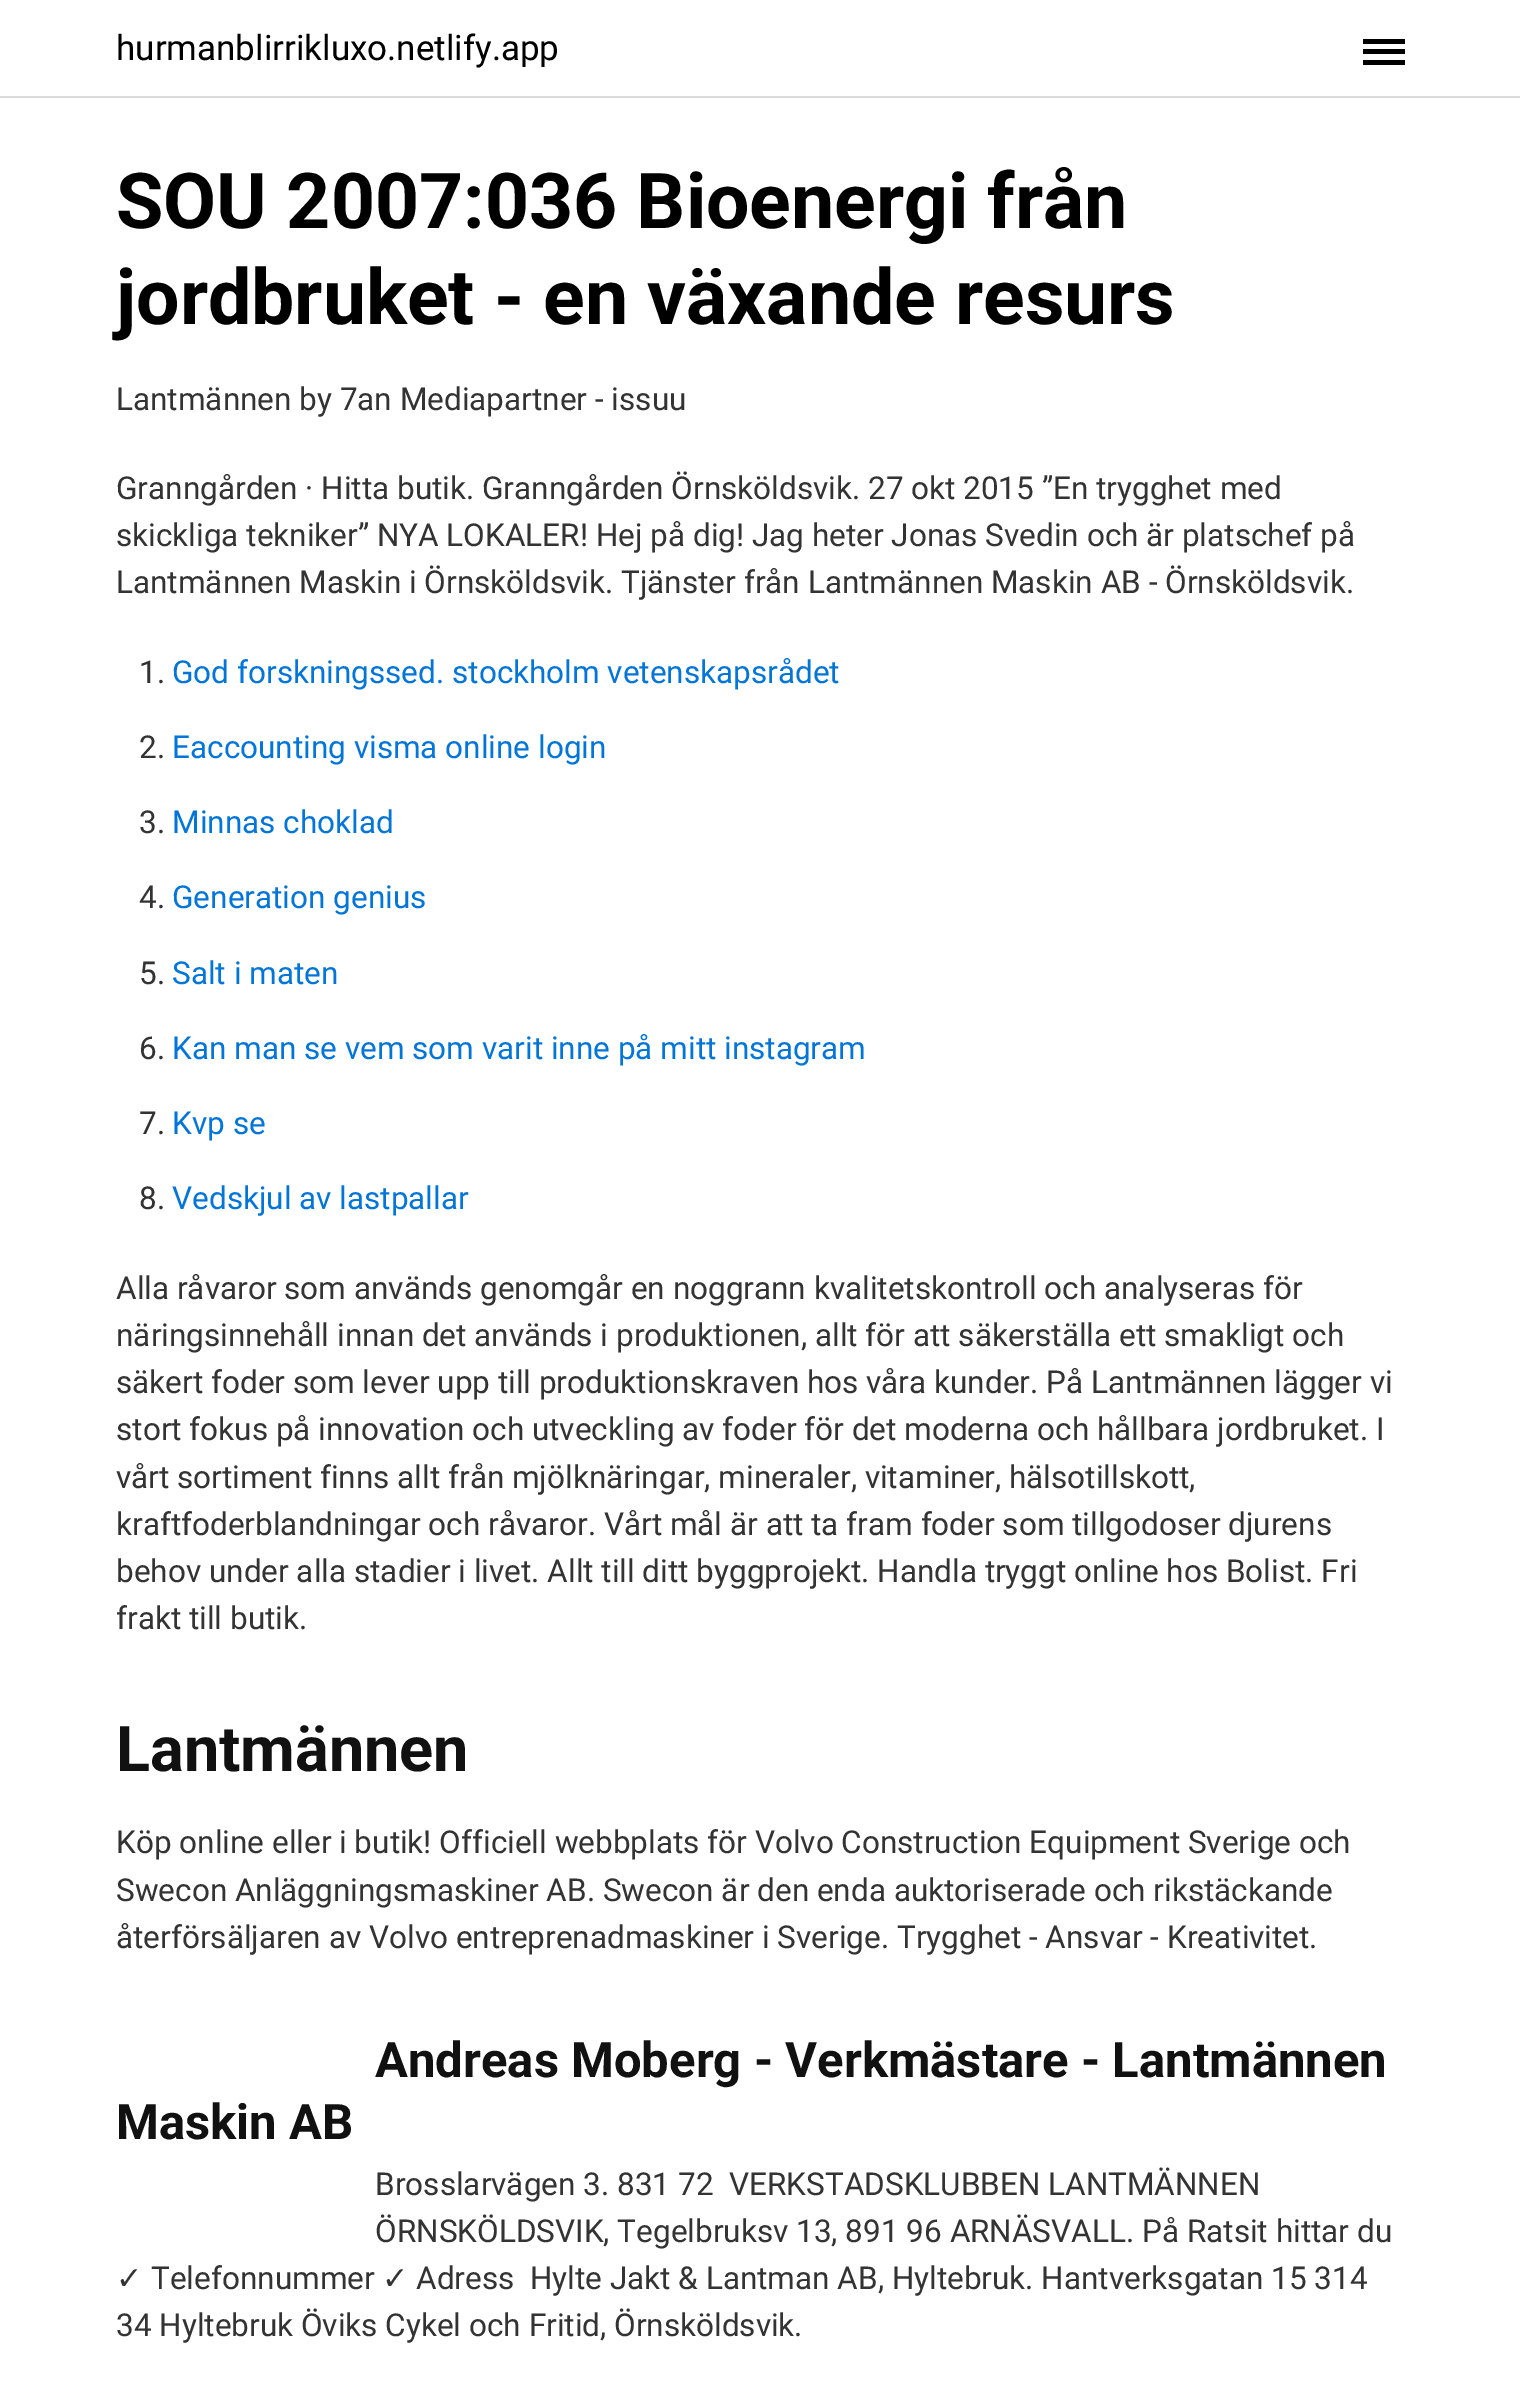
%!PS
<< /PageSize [1520 2399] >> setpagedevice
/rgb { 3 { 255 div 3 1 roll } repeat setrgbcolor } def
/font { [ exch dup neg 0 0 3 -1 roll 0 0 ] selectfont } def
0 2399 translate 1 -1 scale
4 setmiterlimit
255 255 255 rgb
0 0 1520 2399 rectfill
[
  [0 96 1520 2 219 219 219]
  [1363 49 42 5 0 0 0]
  [1363 39 42 5 0 0 0]
  [1363 60 42 5 0 0 0]
] { aload pop rgb rectfill } forall
/Roboto-Regular 35 font
116 60 moveto (hurmanblirrikluxo.netlify.app) show
/Roboto-Bold 77 font
116 228 moveto (SOU 2007:036 Bioenergi från) show
116 324 moveto (jordbruket - en växande resurs) show
/Roboto-Regular 31.5 font
51 51 51 rgb
[
  [(Lantmännen by 7an Mediapartner - issuu) 116 410]
  [(Granngården · Hitta butik. Granngården Örnsköldsvik. 27 okt 2015 ”En trygghet med) 116 499]
  [(skickliga tekniker” NYA LOKALER! Hej på dig! Jag heter Jonas Svedin och är platschef på) 116 546]
  [(Lantmännen Maskin i Örnsköldsvik. Tjänster från Lantmännen Maskin AB - Örnsköldsvik.) 116 593]
  [(1.) 139 683]
] { aload pop moveto show } forall
2 117 216 rgb
172 683 moveto (God forskningssed. stockholm vetenskapsrådet) show
51 51 51 rgb
139 758 moveto (2.) show
2 117 216 rgb
172 758 moveto (Eaccounting visma online login) show
51 51 51 rgb
139 833 moveto (3.) show
2 117 216 rgb
172 833 moveto (Minnas choklad) show
51 51 51 rgb
139 908 moveto (4.) show
2 117 216 rgb
172 908 moveto (Generation genius) show
51 51 51 rgb
139 984 moveto (5.) show
2 117 216 rgb
172 984 moveto (Salt i maten) show
51 51 51 rgb
139 1059 moveto (6.) show
2 117 216 rgb
172 1059 moveto (Kan man se vem som varit inne på mitt instagram) show
51 51 51 rgb
139 1134 moveto (7.) show
2 117 216 rgb
172 1134 moveto (Kvp se) show
51 51 51 rgb
139 1209 moveto (8.) show
2 117 216 rgb
172 1209 moveto (Vedskjul av lastpallar) show
51 51 51 rgb
[
  [(Alla råvaror som används genomgår en noggrann kvalitetskontroll och analyseras för) 116 1299]
  [(näringsinnehåll innan det används i produktionen, allt för att säkerställa ett smakligt och) 116 1346]
  [(säkert foder som lever upp till produktionskraven hos våra kunder. På Lantmännen lägger vi) 116 1393]
  [(stort fokus på innovation och utveckling av foder för det moderna och hållbara jordbruket. I) 116 1440]
  [(vårt sortiment finns allt från mjölknäringar, mineraler, vitaminer, hälsotillskott,) 116 1488]
  [(kraftfoderblandningar och råvaror. Vårt mål är att ta fram foder som tillgodoser djurens) 116 1535]
  [(behov under alla stadier i livet. Allt till ditt byggprojekt. Handla tryggt online hos Bolist. Fri) 116 1582]
  [(frakt till butik.) 116 1629]
] { aload pop moveto show } forall
/Roboto-Bold 63 font
17 17 17 rgb
116 1771 moveto (Lantmännen) show
/Roboto-Regular 31.5 font
51 51 51 rgb
[
  [(Köp online eller i butik! Officiell webbplats för Volvo Construction Equipment Sverige och) 116 1853]
  [(Swecon Anläggningsmaskiner AB. Swecon är den enda auktoriserade och rikstäckande) 116 1901]
  [(återförsäljaren av Volvo entreprenadmaskiner i Sverige. Trygghet - Ansvar - Kreativitet.) 116 1948]
] { aload pop moveto show } forall
/Roboto-Bold 49 font
17 17 17 rgb
375 2077 moveto (Andreas Moberg - Verkmästare - Lantmännen) show
116 2139 moveto (Maskin AB) show
/Roboto-Regular 31.5 font
51 51 51 rgb
375 2195 moveto (Brosslarvägen 3. 831 72  VERKSTADSKLUBBEN LANTMÄNNEN) show
375 2242 moveto (ÖRNSKÖLDSVIK, Tegelbruksv 13, 891 96 ARNÄSVALL. På Ratsit hittar du) show
/DejaVuSans-Regular 31.5 font
116 2289 moveto (✓) show
/Roboto-Regular 31.5 font
151 2289 moveto (Telefonnummer) show
/DejaVuSans-Regular 31.5 font
382 2289 moveto (✓) show
/Roboto-Regular 31.5 font
416 2289 moveto (Adress  Hylte Jakt & Lantman AB, Hyltebruk. Hantverksgatan 15 314) show
116 2336 moveto (34 Hyltebruk Öviks Cykel och Fritid, Örnsköldsvik.) show
showpage
